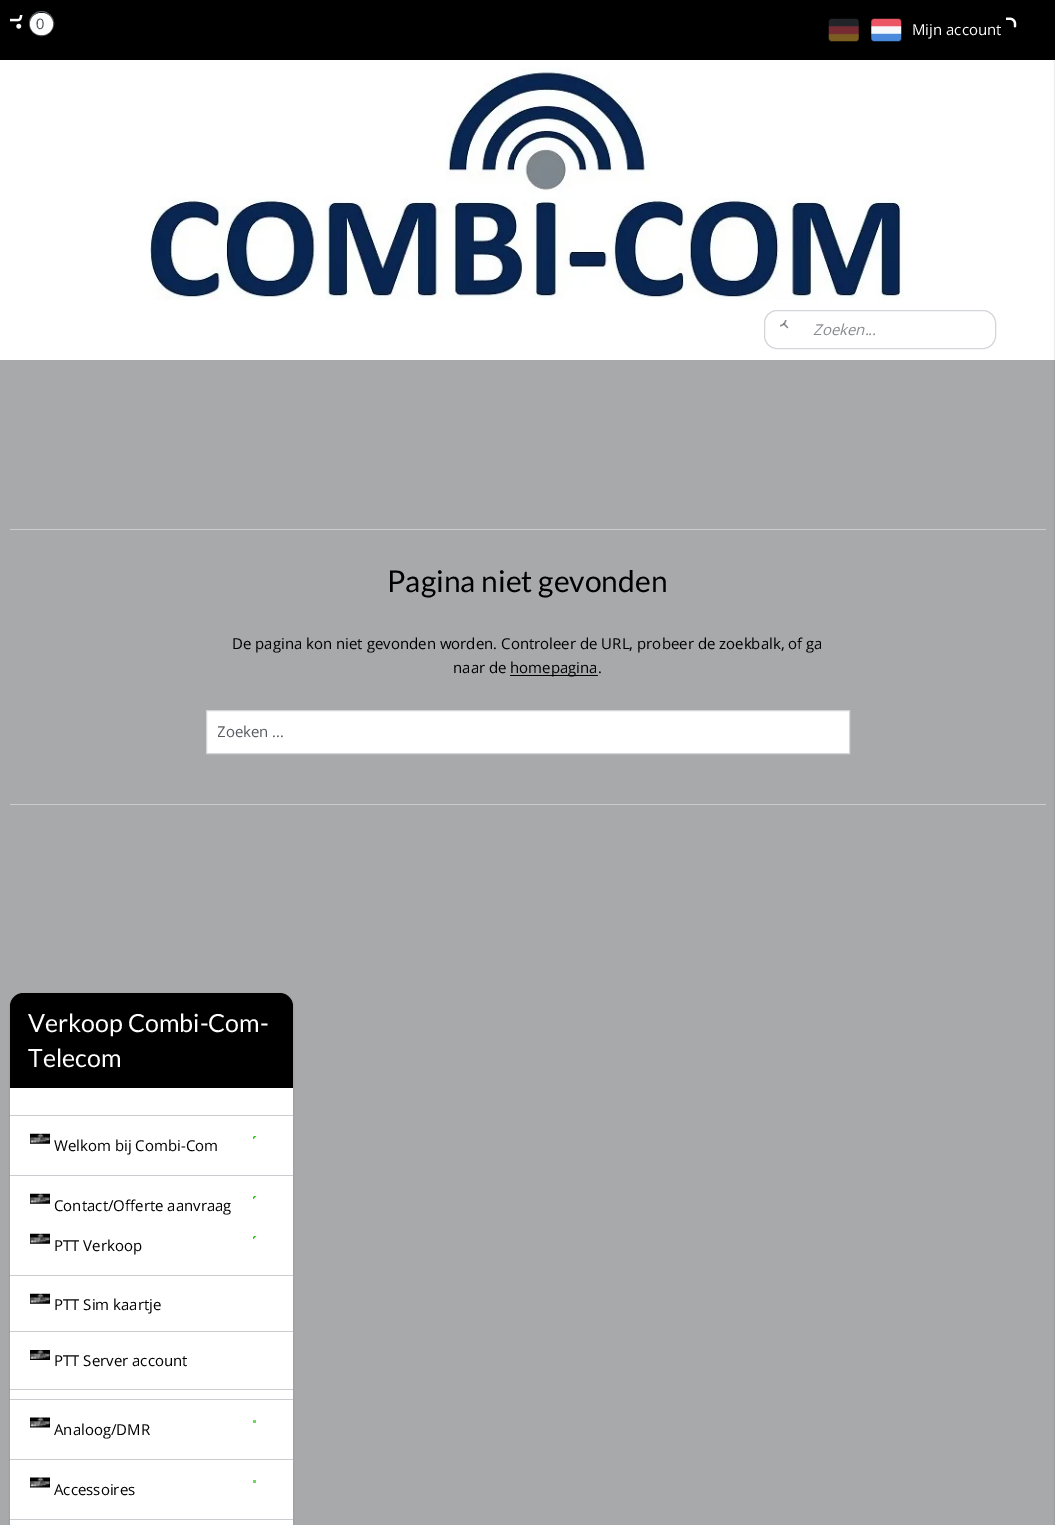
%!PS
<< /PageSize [1055 1525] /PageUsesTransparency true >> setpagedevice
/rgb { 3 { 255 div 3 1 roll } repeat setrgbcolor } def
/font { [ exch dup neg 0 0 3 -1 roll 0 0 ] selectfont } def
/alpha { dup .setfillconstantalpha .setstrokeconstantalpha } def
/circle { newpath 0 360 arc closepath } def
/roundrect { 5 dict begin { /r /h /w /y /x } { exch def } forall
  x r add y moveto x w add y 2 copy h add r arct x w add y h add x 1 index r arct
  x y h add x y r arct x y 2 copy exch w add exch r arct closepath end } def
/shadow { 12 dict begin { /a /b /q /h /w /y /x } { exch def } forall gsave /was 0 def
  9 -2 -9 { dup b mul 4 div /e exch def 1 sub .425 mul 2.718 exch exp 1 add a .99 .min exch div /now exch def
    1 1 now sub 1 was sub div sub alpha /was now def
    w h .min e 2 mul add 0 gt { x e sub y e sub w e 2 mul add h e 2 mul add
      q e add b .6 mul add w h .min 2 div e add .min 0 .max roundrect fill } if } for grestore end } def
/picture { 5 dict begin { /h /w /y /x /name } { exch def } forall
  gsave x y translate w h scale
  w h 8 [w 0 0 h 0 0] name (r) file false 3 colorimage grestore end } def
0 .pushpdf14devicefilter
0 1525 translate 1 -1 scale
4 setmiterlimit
168 169 171 rgb
0 0 1055 1525 rectfill
255 255 255 rgb
0 60 1055 300 rectfill
0 0 0 rgb
0 0 1055 60 rectfill
(img/1.rgb) 10 15 13 14 picture
87 91 98 rgb
41.5 23.5 12 circle stroke
255 255 255 rgb
30 13 23 22 11 roundrect fill
(img/2.rgb) 828 18 31 24 picture
(img/3.rgb) 871 18 31 24 picture
(img/4.rgb) 1006 17 11 11 picture
0 0 0 rgb
1055 1 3 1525 0 1 0.2 shadow
(img/5.rgb) 150 68 754 232 picture
211 213 217 rgb
764.5 310.5 231 38 12.5 roundrect stroke
(img/6.rgb) 780 320 9 9 picture
[
  [10 529 1036 1 202 204 207]
  [10 804 1036 1 202 204 207]
  [510 675 88 1 0 0 0]
] { aload pop rgb rectfill } forall
255 255 255 rgb
206.5 710.5 moveto 849.5 710.5 lineto 849.5 753.5 lineto 206.5 753.5 lineto closepath gsave fill grestore
211 213 217 rgb
stroke
0 0 0 rgb
10 994 283 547 13 1 0.15 shadow
255 255 255 rgb
10 993 283 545 13 roundrect fill
0 0 0 rgb
23 993 moveto 280 993 lineto 287 993 293 999 293 1006 curveto 293 1088 lineto 10 1088 lineto 10 1006 lineto 10 999 16 993 23 993 curveto closepath fill
202 204 207 rgb
10 1115 283 1 rectfill
(img/7.rgb) 30 1133 20 11 picture
(img/8.rgb) 253 1136 4 4 picture
10 1175 283 1 rectfill
(img/7.rgb) 30 1193 20 11 picture
(img/8.rgb) 253 1196 4 4 picture
(img/7.rgb) 30 1233 20 11 picture
(img/8.rgb) 253 1236 4 4 picture
10 1275 283 1 rectfill
(img/7.rgb) 30 1293 20 11 picture
10 1331 283 1 rectfill
(img/9.rgb) 30 1350 20 10 picture
10 1389 283 1 rectfill
10 1399 283 1 rectfill
(img/10.rgb) 30 1417 20 11 picture
114 215 98 rgb
253 1420 3 3 rectfill
202 204 207 rgb
10 1459 283 1 rectfill
(img/10.rgb) 30 1477 20 11 picture
114 215 98 rgb
253 1480 3 3 rectfill
202 204 207 rgb
10 1519 283 1 rectfill
/LiberationSans-Regular 15 font
87 91 98 rgb
36 29 moveto (0) show
/OpenSans-Regular 15 font
255 255 255 rgb
912 35 moveto (Mijn account) show
/OpenSans-Italic 15 font
137 140 145 rgb
813 335 moveto (Zoeken...) show
/Lato-Regular 30 font
0 0 0 rgb
387 592 moveto (Pagina niet gevonden) show
/OpenSans-Regular 15 font
[
  [(De pagina kon niet gevonden worden. Controleer de URL, probeer de zoekbalk, of ga) 232 649]
  [(naar de) 453 673]
  [(homepagina.) 510 673]
] { aload pop moveto show } forall
gsave
218 721 621 22 rectclip
87 91 98 rgb
217 737 moveto (Zoeken ...) show
grestore
/Lato-Regular 25 font
255 255 255 rgb
28 1032 moveto (Verkoop Combi-Com-) show
28 1067 moveto (Telecom) show
/OpenSans-Regular 15 font
0 0 0 rgb
[
  [(Welkom bij Combi-Com) 54 1151]
  [(Contact/Offerte aanvraag) 54 1211]
  [(PTT Verkoop) 54 1251]
  [(PTT Sim kaartje) 54 1310]
  [(PTT Server account) 54 1366]
  [(Analoog/DMR) 54 1435]
  [(Accessoires) 54 1495]
] { aload pop moveto show } forall
.poppdf14devicefilter showpage
